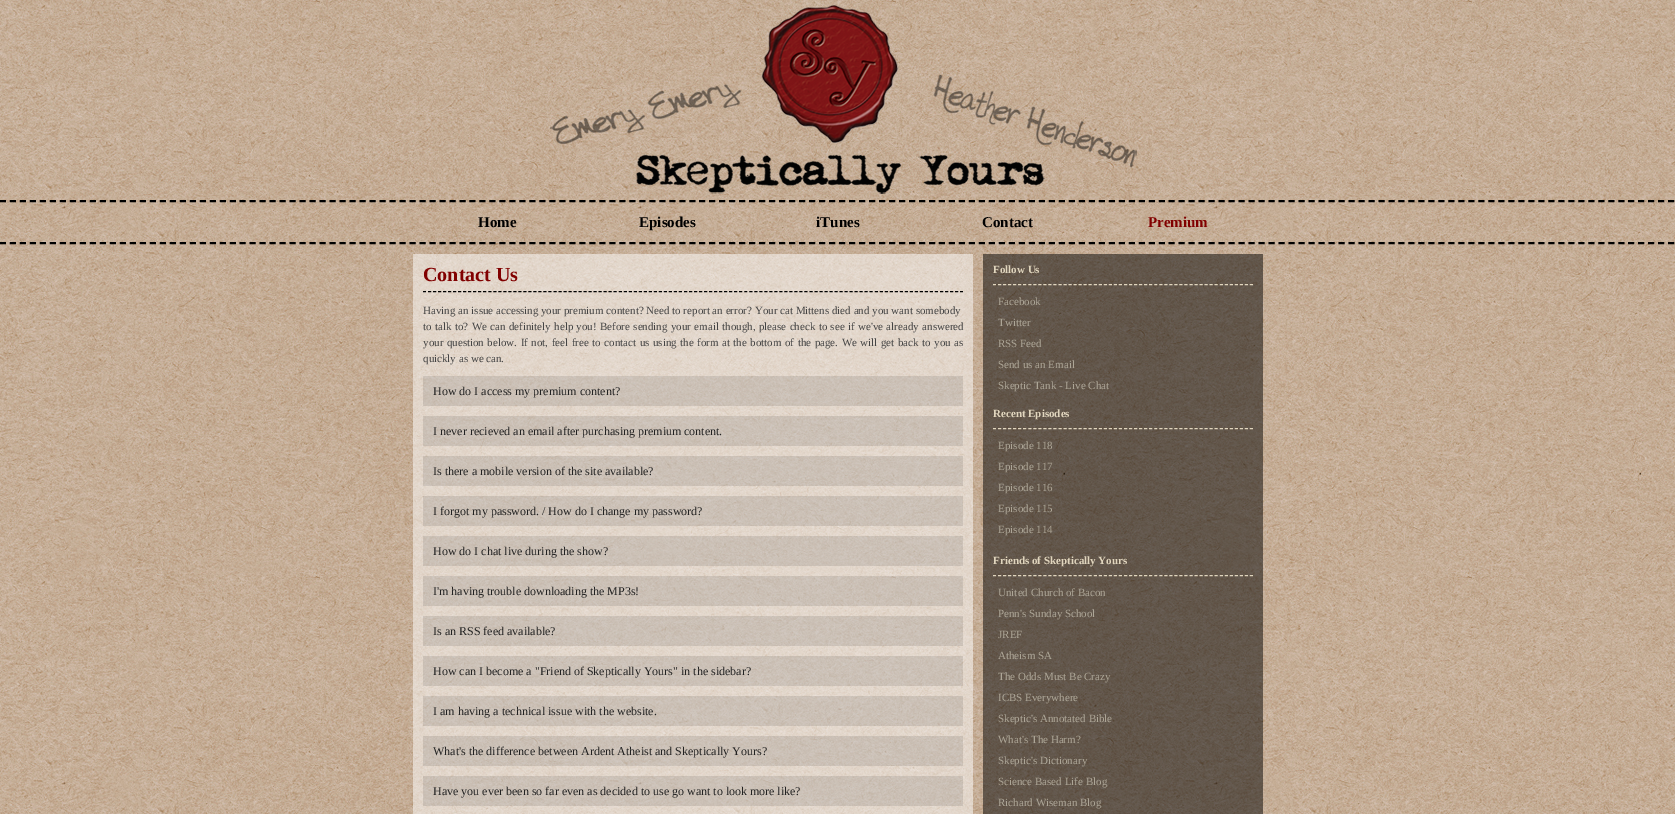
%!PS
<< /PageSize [1675 814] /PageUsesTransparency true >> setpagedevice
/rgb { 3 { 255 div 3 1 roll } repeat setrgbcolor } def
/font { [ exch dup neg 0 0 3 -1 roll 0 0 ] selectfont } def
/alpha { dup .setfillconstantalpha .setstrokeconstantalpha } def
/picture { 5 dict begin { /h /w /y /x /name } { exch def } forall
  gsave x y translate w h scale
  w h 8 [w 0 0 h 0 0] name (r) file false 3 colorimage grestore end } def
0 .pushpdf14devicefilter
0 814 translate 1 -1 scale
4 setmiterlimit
255 255 255 rgb
0 0 1675 814 rectfill
(img/1.rgb) 0 0 1675 814 picture
(img/2.rgb) 550 5 587 189 picture
0 0 0 rgb
2 setlinewidth
[6 3.99] 0 setdash
0 201 moveto 1675 201 lineto stroke
0 243 moveto 1675 243 lineto stroke
(img/3.rgb) 413 254 850 560 picture
1 setlinewidth
[3 2.02] 0 setdash
423 291.5 moveto 963 291.5 lineto stroke
0.1 alpha
[
  [423 376 540 30 0 0 0]
  [423 416 540 30 0 0 0]
  [423 456 540 30 0 0 0]
  [423 496 540 30 0 0 0]
  [423 536 540 30 0 0 0]
  [423 576 540 30 0 0 0]
  [423 616 540 30 0 0 0]
  [423 656 540 30 0 0 0]
  [423 696 540 30 0 0 0]
  [423 736 540 30 0 0 0]
  [423 776 540 30 0 0 0]
] { aload pop rgb rectfill } forall
1 alpha
225 214 190 rgb
[3 2.04] 0 setdash
993 284.5 moveto 1253 284.5 lineto stroke
993 428.5 moveto 1253 428.5 lineto stroke
993 575.5 moveto 1253 575.5 lineto stroke
/LiberationSerif-Bold 15 font
0 0 0 rgb
[
  [(Home) 478 227]
  [(Episodes) 639 227]
  [(iTunes) 816 227]
  [(Contact) 982 227]
] { aload pop moveto show } forall
129 0 0 rgb
1148 227 moveto (Premium) show
/LiberationSerif-Bold 20 font
423 281 moveto (Contact Us) show
/LiberationSerif-Regular 11 font
68 68 68 rgb
423 314 moveto (Having an issue accessing your premium content? Need to report an error? Your cat Mittens died and you want somebody) show
423 330 moveto 0.6 0 32 (to talk to? We can definitely help you! Before sending your email though, please check to see if we've already answered) widthshow
423 346 moveto 0.75 0 32 (your question below. If not, feel free to contact us using the form at the bottom of the page. We will get back to you as) widthshow
423 362 moveto (quickly as we can.) show
/LiberationSerif-Regular 12 font
34 34 34 rgb
[
  [(How do I access my premium content?) 433 395]
  [(I never recieved an email after purchasing premium content.) 433 435]
  [(Is there a mobile version of the site available?) 433 475]
  [(I forgot my password. / How do I change my password?) 433 515]
  [(How do I chat live during the show?) 433 555]
  [(I'm having trouble downloading the MP3s!) 433 595]
  [(Is an RSS feed available?) 433 635]
  [(How can I become a "Friend of Skeptically Yours" in the sidebar?) 433 675]
  [(I am having a technical issue with the website.) 433 715]
  [(What's the difference between Ardent Atheist and Skeptically Yours?) 433 755]
  [(Have you ever been so far even as decided to use go want to look more like?) 433 795]
] { aload pop moveto show } forall
/LiberationSerif-Bold 11 font
225 214 190 rgb
993 273 moveto (Follow Us) show
/LiberationSerif-Regular 11 font
173 166 151 rgb
[
  [(Facebook) 998 305]
  [(Twitter) 998 326]
  [(RSS Feed) 998 347]
  [(Send us an Email) 998 368]
  [(Skeptic Tank - Live Chat) 998 389]
] { aload pop moveto show } forall
/LiberationSerif-Bold 11 font
225 214 190 rgb
993 417 moveto (Recent Episodes) show
/LiberationSerif-Regular 11 font
173 166 151 rgb
[
  [(Episode 118) 998 449]
  [(Episode 117) 998 470]
  [(Episode 116) 998 491]
  [(Episode 115) 998 512]
  [(Episode 114) 998 533]
] { aload pop moveto show } forall
/LiberationSerif-Bold 11 font
225 214 190 rgb
993 564 moveto (Friends of Skeptically Yours) show
/LiberationSerif-Regular 11 font
173 166 151 rgb
[
  [(United Church of Bacon) 998 596]
  [(Penn's Sunday School) 998 617]
  [(JREF) 998 638]
  [(Atheism SA) 998 659]
  [(The Odds Must Be Crazy) 998 680]
  [(ICBS Everywhere) 998 701]
  [(Skeptic's Annotated Bible) 998 722]
  [(What's The Harm?) 998 743]
  [(Skeptic's Dictionary) 998 764]
  [(Science Based Life Blog) 998 785]
  [(Richard Wiseman Blog) 998 806]
] { aload pop moveto show } forall
.poppdf14devicefilter showpage
